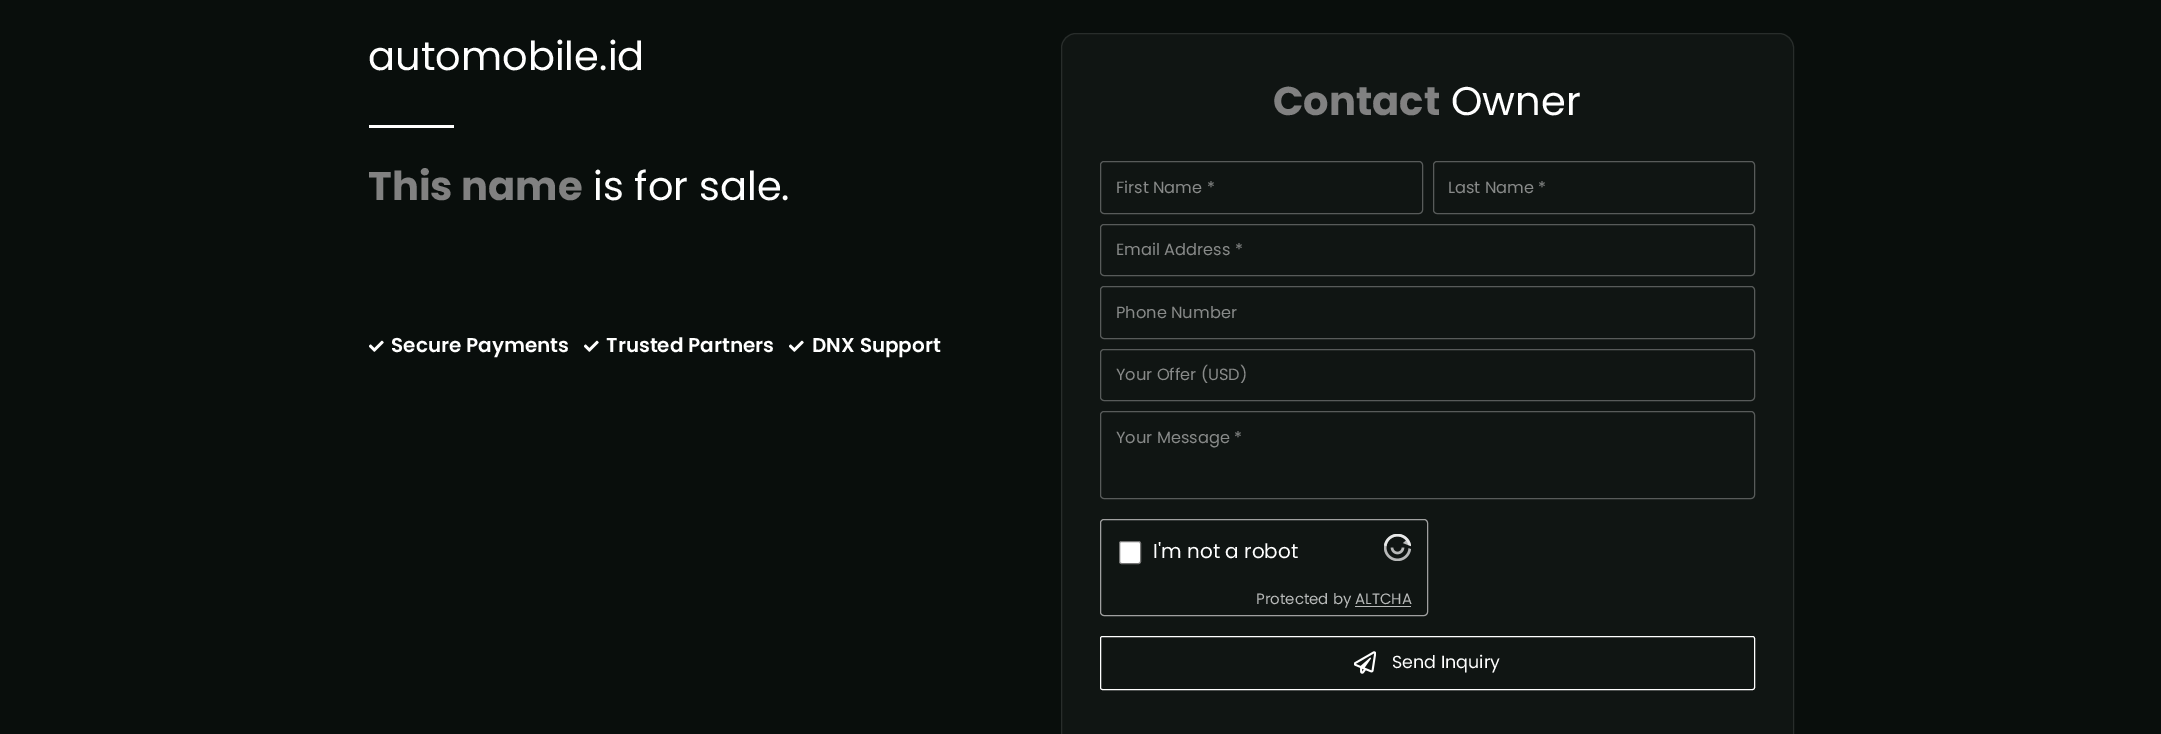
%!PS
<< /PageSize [2161 734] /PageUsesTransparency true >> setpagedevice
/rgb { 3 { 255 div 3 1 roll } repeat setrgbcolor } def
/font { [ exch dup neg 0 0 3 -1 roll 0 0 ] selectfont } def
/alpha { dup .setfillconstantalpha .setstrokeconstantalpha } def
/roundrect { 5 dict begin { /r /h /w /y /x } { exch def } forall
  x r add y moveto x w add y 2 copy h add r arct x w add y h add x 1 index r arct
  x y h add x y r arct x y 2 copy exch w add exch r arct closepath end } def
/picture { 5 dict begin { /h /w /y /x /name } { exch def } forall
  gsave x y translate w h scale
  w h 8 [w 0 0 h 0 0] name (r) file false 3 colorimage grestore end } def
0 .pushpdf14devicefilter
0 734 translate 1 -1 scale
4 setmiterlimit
9 14 12 rgb
0 0 2161 734 rectfill
255 255 255 rgb
369 125 85 3 rectfill
(img/1.rgb) 369 340 15 12 picture
(img/1.rgb) 584 340 15 12 picture
(img/1.rgb) 789 340 15 12 picture
16 21 19 rgb
1061 33 733 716 15 roundrect fill
0.1 alpha
255 255 255 rgb
1061.5 33.5 732 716 14.5 roundrect stroke
1 alpha
88 91 90 rgb
1100.5 161.5 322 52 3.5 roundrect stroke
1433.5 161.5 321 52 3.5 roundrect stroke
1100.5 224.5 654 51 3.5 roundrect stroke
1100.5 286.5 654 52 3.5 roundrect stroke
1100.5 349.5 654 51 3.5 roundrect stroke
1100.5 411.5 654 87 3.5 roundrect stroke
160 160 160 rgb
1100.5 519.5 327 96 3.5 roundrect stroke
255 255 255 rgb
1119.5 541.5 21 22 2 roundrect gsave fill grestore
118 118 118 rgb
stroke
(img/2.rgb) 1384 534 27 27 picture
183 185 184 rgb
1355 606 56 1 rectfill
255 255 255 rgb
1100.5 636.5 654 53 2 roundrect stroke
(img/3.rgb) 1354 651 22 23 picture
/Poppins-Regular 40 font
368 70 moveto (automobile.id) show
/Poppins-Bold 40 font
129 129 129 rgb
368 200 moveto (This name) show
/Poppins-Regular 40 font
255 255 255 rgb
593 200 moveto (is for sale.) show
/Poppins-SemiBold 20 font
[
  [(Secure Payments) 391 352]
  [(Trusted Partners) 606 352]
  [(DNX Support) 812 352]
] { aload pop moveto show } forall
/Poppins-Bold 40 font
129 129 129 rgb
1273 115 moveto (Contact) show
/Poppins-Regular 40 font
255 255 255 rgb
1451 115 moveto (Owner) show
/Poppins-Regular 16.25 font
136 138 137 rgb
[
  [(First Name *) 1116 193]
  [(Last Name *) 1448 193]
  [(Email Address *) 1116 255]
  [(Phone Number) 1116 318]
  [(Your Offer \(USD\)) 1116 380]
  [(Your Message *) 1116 443]
] { aload pop moveto show } forall
/Poppins-Regular 20 font
255 255 255 rgb
1153 558 moveto (I'm not a robot) show
/Poppins-Regular 15 font
183 185 184 rgb
1256 604 moveto (Protected by ALTCHA) show
/Poppins-Regular 17.5 font
255 255 255 rgb
1392 668 moveto (Send Inquiry) show
.poppdf14devicefilter showpage
